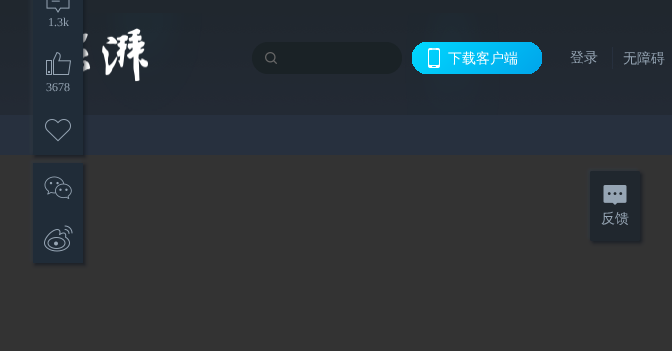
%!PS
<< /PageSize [672 351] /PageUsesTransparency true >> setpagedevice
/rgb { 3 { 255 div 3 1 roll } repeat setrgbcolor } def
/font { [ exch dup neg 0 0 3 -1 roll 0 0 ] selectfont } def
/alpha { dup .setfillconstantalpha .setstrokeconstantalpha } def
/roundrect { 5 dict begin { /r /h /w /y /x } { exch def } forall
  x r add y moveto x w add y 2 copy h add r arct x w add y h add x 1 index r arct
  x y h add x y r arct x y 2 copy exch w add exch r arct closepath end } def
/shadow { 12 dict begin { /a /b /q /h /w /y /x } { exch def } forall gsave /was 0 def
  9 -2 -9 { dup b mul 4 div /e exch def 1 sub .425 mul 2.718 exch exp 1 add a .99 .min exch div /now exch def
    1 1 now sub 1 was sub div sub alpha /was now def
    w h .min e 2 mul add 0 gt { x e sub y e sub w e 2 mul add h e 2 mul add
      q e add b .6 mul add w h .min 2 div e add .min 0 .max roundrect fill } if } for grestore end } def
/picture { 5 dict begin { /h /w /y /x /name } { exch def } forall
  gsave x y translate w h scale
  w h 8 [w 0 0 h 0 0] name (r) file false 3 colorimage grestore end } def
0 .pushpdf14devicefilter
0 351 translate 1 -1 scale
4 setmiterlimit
32 39 46 rgb
0 0 672 351 rectfill
(img/6.rgb) 0 13 672 102 picture
(img/7.rgb) 83 28 65 54 picture
39 48 62 rgb
0 115 672 40 rectfill
51 51 51 rgb
0 155 672 196 rectfill
48 58 68 rgb
31 -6 50 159 0 2 0.7 shadow
15 23 31 rgb
35 -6 50 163 0 2 0.7 shadow
32 44 56 rgb
33 0 50 155 rectfill
(img/1.rgb) 46 0 24 13 picture
(img/2.rgb) 46 52 25 23 picture
(img/3.rgb) 45 119 26 23 picture
48 58 68 rgb
31 161 50 100 0 2 0.7 shadow
15 23 31 rgb
35 165 50 100 0 2 0.7 shadow
32 44 56 rgb
33 163 50 100 rectfill
(img/4.rgb) 44 176 28 23 picture
(img/5.rgb) 44 225 29 27 picture
26 34 38 rgb
252 42 150 32 16 roundrect fill
(img/8.rgb) 265 52 12 12 picture
gsave 412 42 130 32 16 roundrect clip newpath
<< /ShadingType 2 /ColorSpace /DeviceRGB /Coords [437 18 518 99] /Extend [true true] /Function << /FunctionType 2 /Domain [0 1] /C0 [0 0.851 1] /C1 [0 0.647 0.922] /N 1 >> >> shfill grestore
(img/9.rgb) 428 48 12 20 picture
39 48 62 rgb
612 47 1 22 rectfill
48 58 68 rgb
588 169 50 70 2 2 0.7 shadow
15 23 31 rgb
592 173 50 70 2 2 0.7 shadow
32 39 46 rgb
590 171 50 70 2 roundrect fill
(img/10.rgb) 603 185 24 20 picture
/LiberationSerif-Regular 12 font
150 165 180 rgb
48 26 moveto (1.3k) show
46 91 moveto (3678) show
/WenQuanYiZenHei-Medium 14 font
255 255 255 rgb
448 63 moveto (下载客户端) show
150 165 180 rgb
[
  [(登录) 570 62]
  [(无障碍) 623 63]
  [(反馈) 601 223]
] { aload pop moveto show } forall
.poppdf14devicefilter showpage
